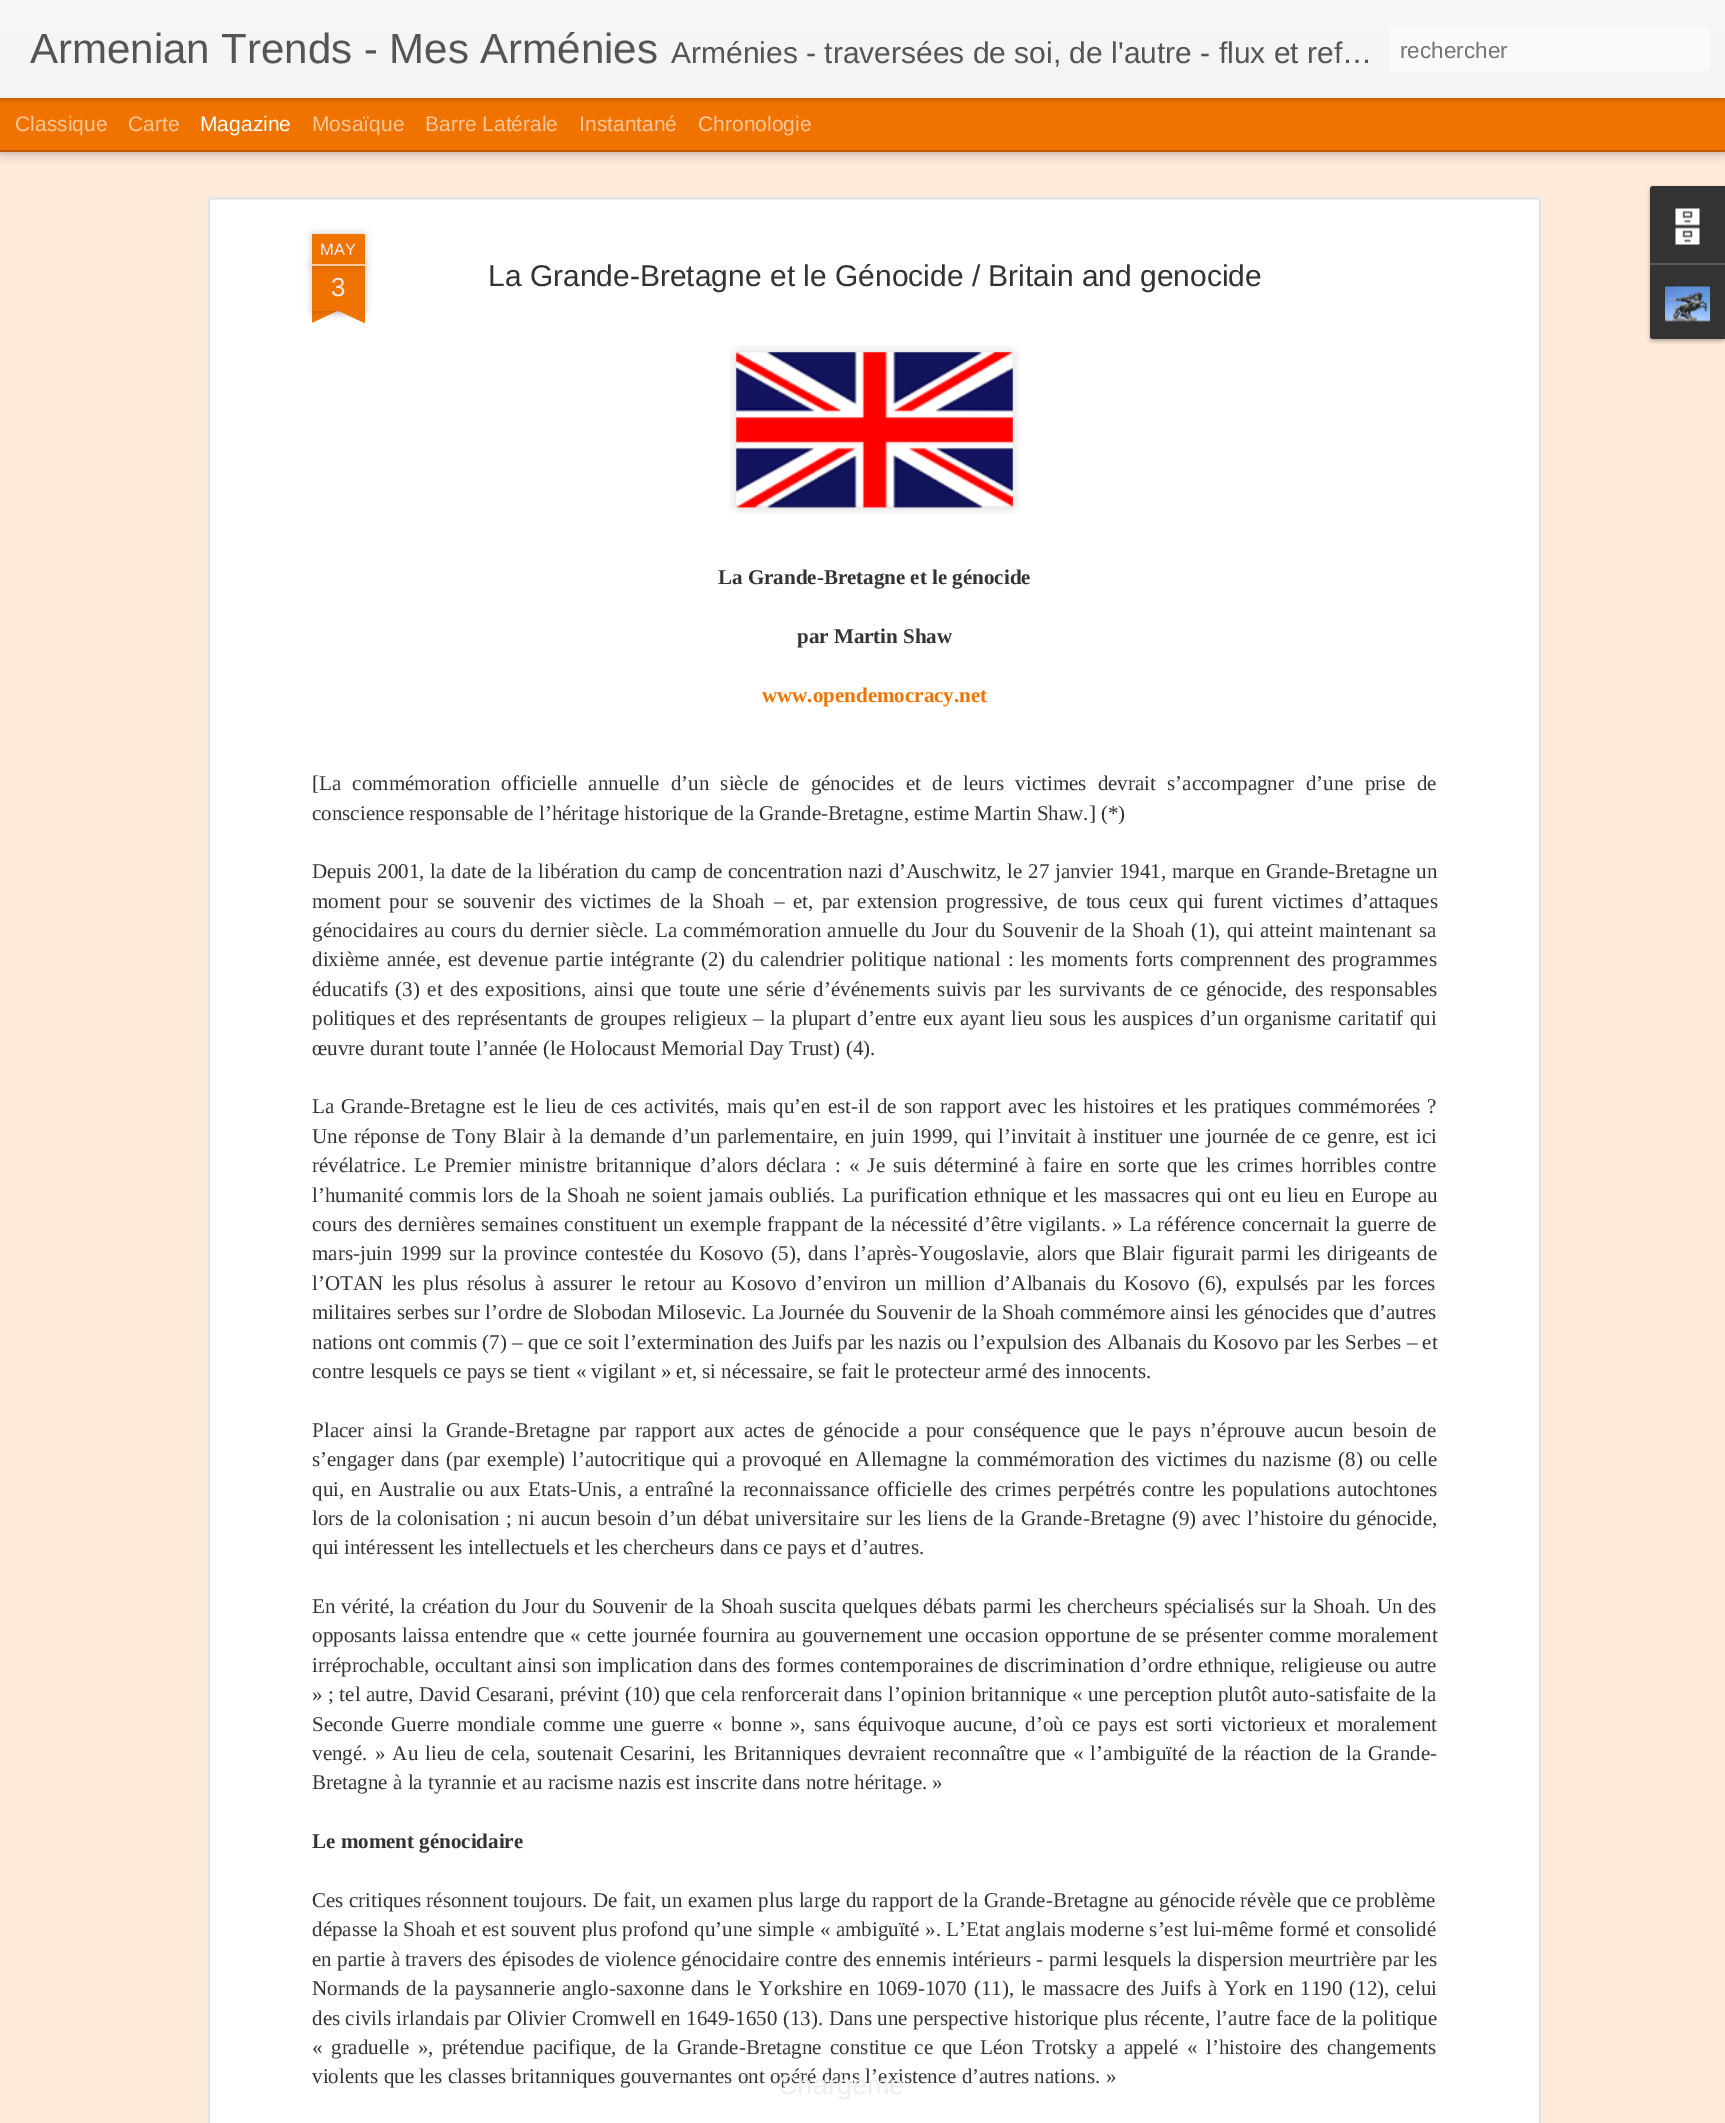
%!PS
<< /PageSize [1725 2123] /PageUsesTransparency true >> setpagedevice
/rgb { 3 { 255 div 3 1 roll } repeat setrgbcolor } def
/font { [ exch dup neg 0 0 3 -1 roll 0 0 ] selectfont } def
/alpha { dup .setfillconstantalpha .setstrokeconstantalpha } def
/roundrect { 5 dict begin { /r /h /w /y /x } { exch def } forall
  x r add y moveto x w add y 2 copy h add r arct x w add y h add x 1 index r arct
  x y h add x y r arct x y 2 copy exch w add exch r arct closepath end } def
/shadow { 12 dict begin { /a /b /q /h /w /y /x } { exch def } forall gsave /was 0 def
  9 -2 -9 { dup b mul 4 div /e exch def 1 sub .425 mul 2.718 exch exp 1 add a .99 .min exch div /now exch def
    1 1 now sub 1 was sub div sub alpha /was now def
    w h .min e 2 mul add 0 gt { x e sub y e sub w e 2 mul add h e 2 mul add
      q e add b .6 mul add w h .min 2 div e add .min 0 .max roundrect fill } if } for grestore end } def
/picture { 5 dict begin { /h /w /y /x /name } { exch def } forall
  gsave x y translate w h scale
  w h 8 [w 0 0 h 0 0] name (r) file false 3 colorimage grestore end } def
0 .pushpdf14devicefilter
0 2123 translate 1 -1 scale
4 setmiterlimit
240 115 0 rgb
0 0 1725 2123 rectfill
253 234 217 rgb
0 152 1725 1971 rectfill
0 0 0 rgb
0 98 1725 52 0 6 0.5 shadow
240 115 0 rgb
0 98 1725 52 rectfill
0 0 0 rgb
0 0 1725 98 0 4 0.3 shadow
gsave 0 0 moveto 1725 0 lineto 1725 98 lineto 0 98 lineto closepath clip newpath
<< /ShadingType 2 /ColorSpace /DeviceRGB /Coords [0 0 0 98] /Extend [true true] /Function << /FunctionType 2 /Domain [0 1] /C0 [0.969 0.969 0.969] /C1 [0.957 0.957 0.957] /N 1 >> >> shfill grestore
250 250 250 rgb
1389 27 321 45 5 roundrect fill
255 255 255 rgb
207 197 1335 1926 rectfill
(img/1.rgb) 207 197 1335 1926 picture
0 0 0 rgb
312 266 53 45 0 4 0.2 shadow
240 115 0 rgb
312 266 53 45 rectfill
0 0 0 rgb
312 234 53 32 1.5 4 0.2 shadow
240 115 0 rgb
313.5 234 moveto 363.5 234 lineto 364.5 234 365 234.5 365 235.5 curveto 365 266 lineto 312 266 lineto 312 235.5 lineto 312 234.5 312.5 234 313.5 234 curveto closepath fill
249 199 153 rgb
312 264 53 2 rectfill
gsave
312 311 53 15 rectclip
0 0 0 rgb
299 296 75 15 0 4 0.2 shadow
grestore
gsave
312 311 53 15 rectclip
240 115 0 rgb
299 312 moveto 367 280 lineto 373 294 lineto 305 326 lineto closepath fill
grestore
gsave
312 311 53 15 rectclip
0 0 0 rgb
303 296 75 15 0 4 0.2 shadow
grestore
gsave
312 311 53 15 rectclip
240 115 0 rgb
310 280 moveto 378 312 lineto 371 326 lineto 303 294 lineto closepath fill
grestore
(img/2.rgb) 729 345 291 169 picture
(img/3.rgb) 736 352 277 157 picture
0 0 0 rgb
1650 188 75 153 3 2 0.3 shadow
51 51 51 rgb
1653 186 moveto 1725 186 lineto 1725 263 lineto 1650 263 lineto 1650 189 lineto 1650 187.5 1651.5 186 1653 186 curveto closepath fill
(img/4.rgb) 1675 208 25 37 picture
1650 263 moveto 1725 263 lineto 1725 339 lineto 1653 339 lineto 1651.5 339 1650 337.5 1650 336 curveto closepath fill
88 88 88 rgb
1650 263 75 2 rectfill
(img/5.rgb) 1665 286 45 36 picture
/LiberationSans-Regular 42 font
85 85 85 rgb
30 63 moveto (Armenian Trends - Mes Arménies) show
/LiberationSans-Regular 30 font
671 63 moveto (Arménies - traversées de soi, de l'autre - flux et ref…) show
/LiberationSans-Regular 22.5 font
117 117 117 rgb
1400 58 moveto (rechercher) show
/LiberationSans-Regular 21 font
249 199 153 rgb
15 131 moveto (Classique) show
128 131 moveto (Carte) show
255 255 255 rgb
200 131 moveto (Magazine) show
249 199 153 rgb
[
  [(Mosaïque) 312 131]
  [(Barre Latérale) 425 131]
  [(Instantané) 579 131]
  [(Chronologie) 698 131]
] { aload pop moveto show } forall
/LiberationSans-Regular 16.5 font
238 238 238 rgb
320 255 moveto (MAY) show
/LiberationSans-Regular 26 font
331 296 moveto (3) show
/LiberationSans-Regular 30 font
51 51 51 rgb
488 286 moveto (La Grande-Bretagne et le Génocide / Britain and genocide) show
/LiberationSerif-Bold 21 font
718 584 moveto (La Grande-Bretagne et le génocide) show
797 643 moveto (par Martin Shaw) show
240 115 0 rgb
762 702 moveto (www.opendemocracy.net) show
/LiberationSerif-Regular 21 font
51 51 51 rgb
312 790 moveto 6 0 32 ([La commémoration officielle annuelle d’un siècle de génocides et de leurs victimes devrait s’accompagner d’une prise de) widthshow
312 820 moveto (conscience responsable de l’héritage historique de la Grande-Bretagne, estime Martin Shaw.] \(*\)) show
312 878 moveto 0.5 0 32 (Depuis 2001, la date de la libération du camp de concentration nazi d’Auschwitz, le 27 janvier 1941, marque en Grande-Bretagne un) widthshow
312 908 moveto 3.4 0 32 (moment pour se souvenir des victimes de la Shoah – et, par extension progressive, de tous ceux qui furent victimes d’attaques) widthshow
312 937 moveto 1.1 0 32 (génocidaires au cours du dernier siècle. La commémoration annuelle du Jour du Souvenir de la Shoah \(1\), qui atteint maintenant sa) widthshow
312 966 moveto 1.75 0 32 (dixième année, est devenue partie intégrante \(2\) du calendrier politique national : les moments forts comprennent des programmes) widthshow
312 996 moveto 2.25 0 32 (éducatifs \(3\) et des expositions, ainsi que toute une série d’événements suivis par les survivants de ce génocide, des responsables) widthshow
312 1025 moveto 1 0 32 (politiques et des représentants de groupes religieux – la plupart d’entre eux ayant lieu sous les auspices d’un organisme caritatif qui) widthshow
312 1055 moveto (œuvre durant toute l’année \(le Holocaust Memorial Day Trust\) \(4\).) show
312 1113 moveto 1.75 0 32 (La Grande-Bretagne est le lieu de ces activités, mais qu’en est-il de son rapport avec les histoires et les pratiques commémorées ?) widthshow
312 1143 moveto 1.45 0 32 (Une réponse de Tony Blair à la demande d’un parlementaire, en juin 1999, qui l’invitait à instituer une journée de ce genre, est ici) widthshow
312 1172 moveto 2.9 0 32 (révélatrice. Le Premier ministre britannique d’alors déclara : « Je suis déterminé à faire en sorte que les crimes horribles contre) widthshow
312 1202 moveto 1 0 32 (l’humanité commis lors de la Shoah ne soient jamais oubliés. La purification ethnique et les massacres qui ont eu lieu en Europe au) widthshow
312 1231 moveto 1 0 32 (cours des dernières semaines constituent un exemple frappant de la nécessité d’être vigilants. » La référence concernait la guerre de) widthshow
312 1260 moveto 2 0 32 (mars-juin 1999 sur la province contestée du Kosovo \(5\), dans l’après-Yougoslavie, alors que Blair figurait parmi les dirigeants de) widthshow
312 1290 moveto 3.25 0 32 (l’OTAN les plus résolus à assurer le retour au Kosovo d’environ un million d’Albanais du Kosovo \(6\), expulsés par les forces) widthshow
312 1319 moveto (militaires serbes sur l’ordre de Slobodan Milosevic. La Journée du Souvenir de la Shoah commémore ainsi les génocides que d’autres) show
312 1349 moveto 0.2 0 32 (nations ont commis \(7\) – que ce soit l’extermination des Juifs par les nazis ou l’expulsion des Albanais du Kosovo par les Serbes – et) widthshow
312 1378 moveto (contre lesquels ce pays se tient « vigilant » et, si nécessaire, se fait le protecteur armé des innocents.) show
312 1437 moveto 3.6 0 32 (Placer ainsi la Grande-Bretagne par rapport aux actes de génocide a pour conséquence que le pays n’éprouve aucun besoin de) widthshow
312 1466 moveto 1.75 0 32 (s’engager dans \(par exemple\) l’autocritique qui a provoqué en Allemagne la commémoration des victimes du nazisme \(8\) ou celle) widthshow
312 1496 moveto 1.9 0 32 (qui, en Australie ou aux Etats-Unis, a entraîné la reconnaissance officielle des crimes perpétrés contre les populations autochtones) widthshow
312 1525 moveto 1 0 32 (lors de la colonisation ; ni aucun besoin d’un débat universitaire sur les liens de la Grande-Bretagne \(9\) avec l’histoire du génocide,) widthshow
312 1554 moveto (qui intéressent les intellectuels et les chercheurs dans ce pays et d’autres.) show
312 1613 moveto 0.8 0 32 (En vérité, la création du Jour du Souvenir de la Shoah suscita quelques débats parmi les chercheurs spécialisés sur la Shoah. Un des) widthshow
312 1642 moveto 1 0 32 (opposants laissa entendre que « cette journée fournira au gouvernement une occasion opportune de se présenter comme moralement) widthshow
312 1672 moveto 0.3 0 32 (irréprochable, occultant ainsi son implication dans des formes contemporaines de discrimination d’ordre ethnique, religieuse ou autre) widthshow
312 1701 moveto 0.3 0 32 (» ; tel autre, David Cesarani, prévint \(10\) que cela renforcerait dans l’opinion britannique « une perception plutôt auto-satisfaite de la) widthshow
312 1731 moveto 2.6 0 32 (Seconde Guerre mondiale comme une guerre « bonne », sans équivoque aucune, d’où ce pays est sorti victorieux et moralement) widthshow
312 1760 moveto 2 0 32 (vengé. » Au lieu de cela, soutenait Cesarini, les Britanniques devraient reconnaître que « l’ambiguïté de la réaction de la Grande-) widthshow
312 1789 moveto (Bretagne à la tyrannie et au racisme nazis est inscrite dans notre héritage. ») show
/LiberationSerif-Bold 21 font
312 1848 moveto (Le moment génocidaire) show
/LiberationSerif-Regular 21 font
312 1907 moveto 0.1 0 32 (Ces critiques résonnent toujours. De fait, un examen plus large du rapport de la Grande-Bretagne au génocide révèle que ce problème) widthshow
312 1936 moveto 0.25 0 32 (dépasse la Shoah et est souvent plus profond qu’une simple « ambiguïté ». L’Etat anglais moderne s’est lui-même formé et consolidé) widthshow
312 1966 moveto 0.25 0 32 (en partie à travers des épisodes de violence génocidaire contre des ennemis intérieurs - parmi lesquels la dispersion meurtrière par les) widthshow
312 1995 moveto 1.55 0 32 (Normands de la paysannerie anglo-saxonne dans le Yorkshire en 1069-1070 \(11\), le massacre des Juifs à York en 1190 \(12\), celui) widthshow
312 2025 moveto 0.25 0 32 (des civils irlandais par Olivier Cromwell en 1649-1650 \(13\). Dans une perspective historique plus récente, l’autre face de la politique) widthshow
312 2054 moveto 3.25 0 32 (« graduelle », prétendue pacifique, de la Grande-Bretagne constitue ce que Léon Trotsky a appelé « l’histoire des changements) widthshow
312 2083 moveto (violents que les classes britanniques gouvernantes ont opéré dans l’existence d’autres nations. ») show
/LiberationSans-Regular 27 font
238 238 238 rgb
778 2094 moveto (Chargeme) show
.poppdf14devicefilter showpage
